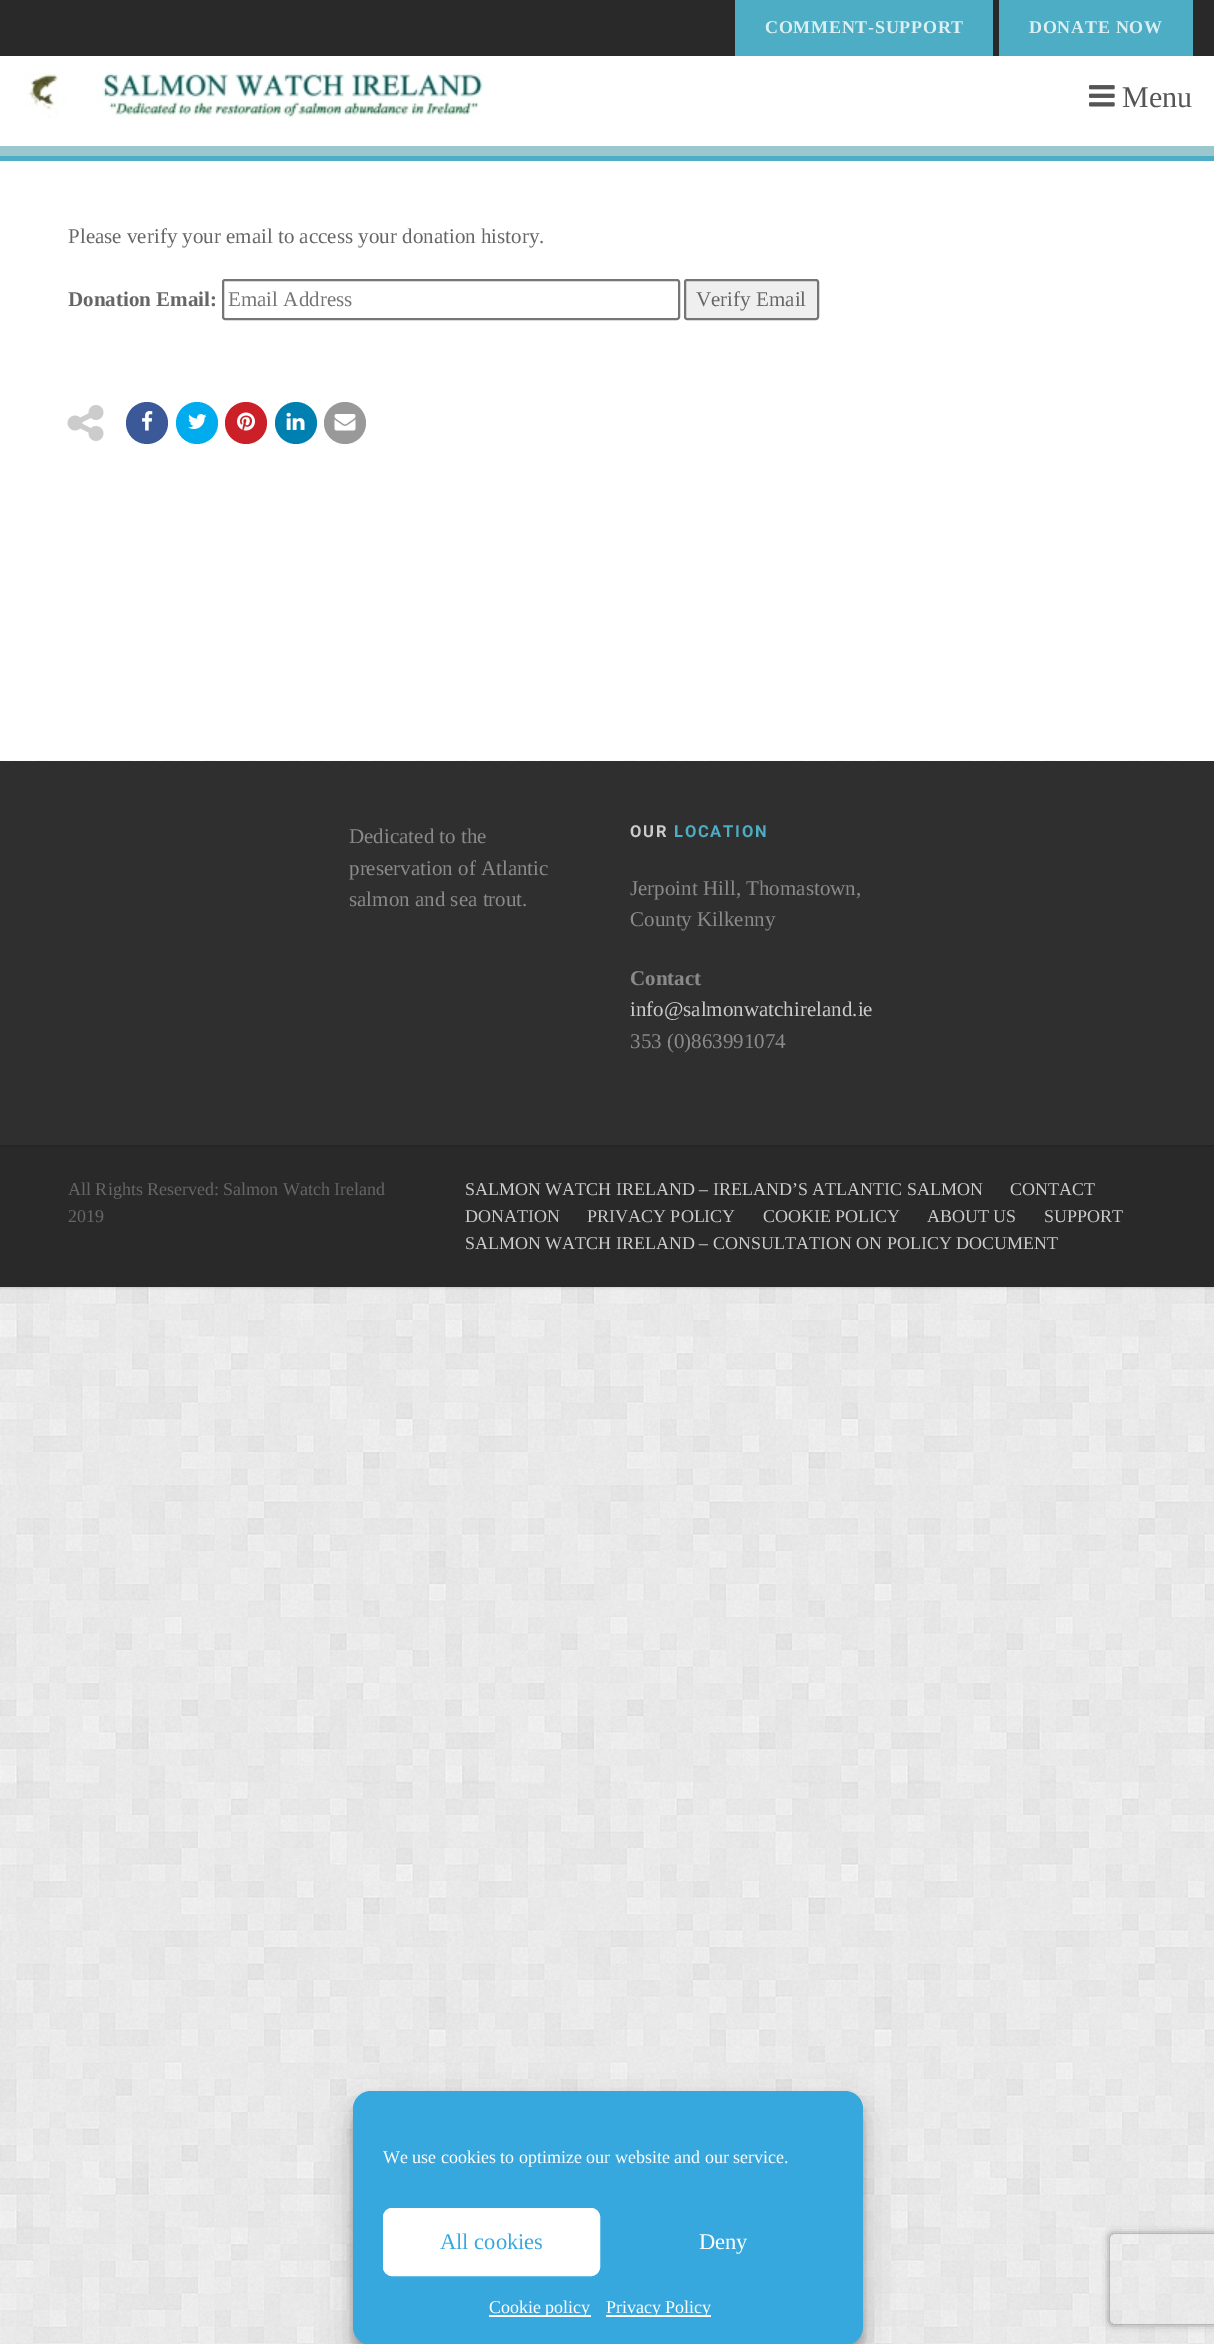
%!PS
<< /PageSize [1214 2344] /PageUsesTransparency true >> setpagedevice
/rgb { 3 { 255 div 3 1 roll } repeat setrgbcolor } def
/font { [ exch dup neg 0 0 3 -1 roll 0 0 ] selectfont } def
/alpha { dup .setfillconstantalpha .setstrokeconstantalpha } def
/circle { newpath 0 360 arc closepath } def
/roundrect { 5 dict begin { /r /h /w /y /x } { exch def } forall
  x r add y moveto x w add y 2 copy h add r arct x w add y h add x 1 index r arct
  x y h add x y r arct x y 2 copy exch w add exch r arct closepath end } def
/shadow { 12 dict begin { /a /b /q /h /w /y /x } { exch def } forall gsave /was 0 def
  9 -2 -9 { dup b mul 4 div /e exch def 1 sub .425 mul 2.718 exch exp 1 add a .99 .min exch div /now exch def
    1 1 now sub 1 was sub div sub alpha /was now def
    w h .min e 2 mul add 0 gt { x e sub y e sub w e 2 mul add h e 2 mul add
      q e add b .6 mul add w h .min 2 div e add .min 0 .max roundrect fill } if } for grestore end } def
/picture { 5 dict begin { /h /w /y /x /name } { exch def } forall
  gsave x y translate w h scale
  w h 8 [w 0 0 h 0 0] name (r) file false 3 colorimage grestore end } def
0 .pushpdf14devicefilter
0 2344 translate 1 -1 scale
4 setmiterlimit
255 255 255 rgb
0 0 1214 2344 rectfill
(img/1.rgb) 0 1287 1214 1057 picture
0 0 0 rgb
0 0 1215 1287 0 1.5 0.2 shadow
[
  [0 56 1214 705 255 255 255]
  [0 0 1214 56 41 41 41]
  [735 0 258 56 76 173 197]
  [999 0 194 56 76 173 197]
] { aload pop rgb rectfill } forall
(img/2.rgb) 24 72 459 46 picture
(img/3.rgb) 1089 85 26 22 picture
155 200 206 rgb
0 146 1214 10 rectfill
76 173 197 rgb
0 156 1214 5 rectfill
118 118 118 rgb
2 setlinewidth
223 280 456 39 2 roundrect stroke
239 239 239 rgb
685 280 133 39 2 roundrect gsave fill grestore
118 118 118 rgb
stroke
(img/4.rgb) 67 405 37 36 picture
59 89 152 rgb
147 423 21 circle fill
(img/5.rgb) 142 411 11 20 picture
0 172 237 rgb
197 423 21 circle fill
(img/6.rgb) 188 414 19 15 picture
203 32 39 rgb
246 423 21 circle fill
(img/7.rgb) 237 412 18 19 picture
0 127 177 rgb
296 423 21 circle fill
(img/8.rgb) 286 412 19 18 picture
153 153 153 rgb
345 423 21 circle fill
(img/9.rgb) 334 414 22 17 picture
47 47 47 rgb
0 761 1214 384 rectfill
(img/10.rgb) 0 760 1178 1 picture
41 41 41 rgb
0 1147 1214 140 rectfill
37 37 37 rgb
0 1145 1214 2 rectfill
0 0 0 rgb
353 2100 510 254 18 4.5 0.23 shadow
353 2106 510 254 18 15 0.19 shadow
55 168 222 rgb
353 2091 510 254 18 roundrect fill
255 255 255 rgb
384 2209 215 66 8 roundrect gsave fill grestore
stroke
489 2315 102 2 rectfill
606 2315 105 2 rectfill
gsave
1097 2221 moveto 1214 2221 lineto 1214 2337 lineto 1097 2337 lineto closepath 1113 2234 moveto 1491 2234 lineto 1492.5 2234 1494 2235.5 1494 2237 curveto 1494 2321 lineto 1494 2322.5 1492.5 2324 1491 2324 curveto 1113 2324 lineto 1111.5 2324 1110 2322.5 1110 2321 curveto 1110 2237 lineto 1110 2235.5 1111.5 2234 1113 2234 curveto closepath eoclip newpath
128 128 128 rgb
1110 2234 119 90 3 4 1 shadow
grestore
/LiberationSerif-Bold 18 font
219 239 243 rgb
765 33 moveto 0.75 0 (COMMENT-SUPPORT) ashow
1029 33 moveto 0.75 0 (DONATE NOW) ashow
/LiberationSerif-Regular 30 font
85 85 85 rgb
1122 107 moveto (Menu) show
/LiberationSerif-Regular 21 font
102 102 102 rgb
68 243 moveto (Please verify your email to access your donation history.) show
/LiberationSerif-Bold 21 font
68 306 moveto (Donation Email:) show
/LiberationSerif-Regular 21 font
117 117 117 rgb
228 306 moveto (Email Address) show
102 102 102 rgb
696 306 moveto (Verify Email) show
138 138 138 rgb
[
  [(Dedicated to the) 349 843]
  [(preservation of Atlantic) 349 875]
  [(salmon and sea trout.) 349 906]
] { aload pop moveto show } forall
/Roboto-Bold 16.5 font
204 204 204 rgb
630 837 moveto 1.75 0 (OUR) ashow
76 173 197 rgb
674 837 moveto 1.75 0 (LOCATION) ashow
/LiberationSerif-Regular 21 font
138 138 138 rgb
630 895 moveto (Jerpoint Hill, Thomastown,) show
630 926 moveto (County Kilkenny) show
/LiberationSerif-Bold 21 font
630 985 moveto (Contact) show
/LiberationSerif-Regular 21 font
204 204 204 rgb
630 1016 moveto (info@salmonwatchireland.ie) show
138 138 138 rgb
630 1048 moveto (353 \(0\)863991074) show
/LiberationSerif-Regular 18 font
102 102 102 rgb
68 1195 moveto (All Rights Reserved: Salmon Watch Ireland) show
68 1222 moveto (2019) show
204 204 204 rgb
[
  [(SALMON WATCH IRELAND – IRELAND’S ATLANTIC SALMON) 465 1195]
  [(CONTACT) 1010 1195]
  [(DONATION) 465 1222]
  [(PRIVACY POLICY) 587 1222]
  [(COOKIE POLICY) 763 1222]
  [(ABOUT US) 927 1222]
  [(SUPPORT) 1044 1222]
  [(SALMON WATCH IRELAND – CONSULTATION ON POLICY DOCUMENT) 465 1249]
] { aload pop moveto show } forall
255 255 255 rgb
383 2163 moveto (We use cookies to optimize our website and our service.) show
/LiberationSerif-Regular 22.5 font
55 168 222 rgb
440 2249 moveto (All cookies) show
255 255 255 rgb
699 2249 moveto (Deny) show
/LiberationSerif-Regular 18 font
489 2313 moveto (Cookie policy) show
606 2313 moveto (Privacy Policy) show
.poppdf14devicefilter showpage
